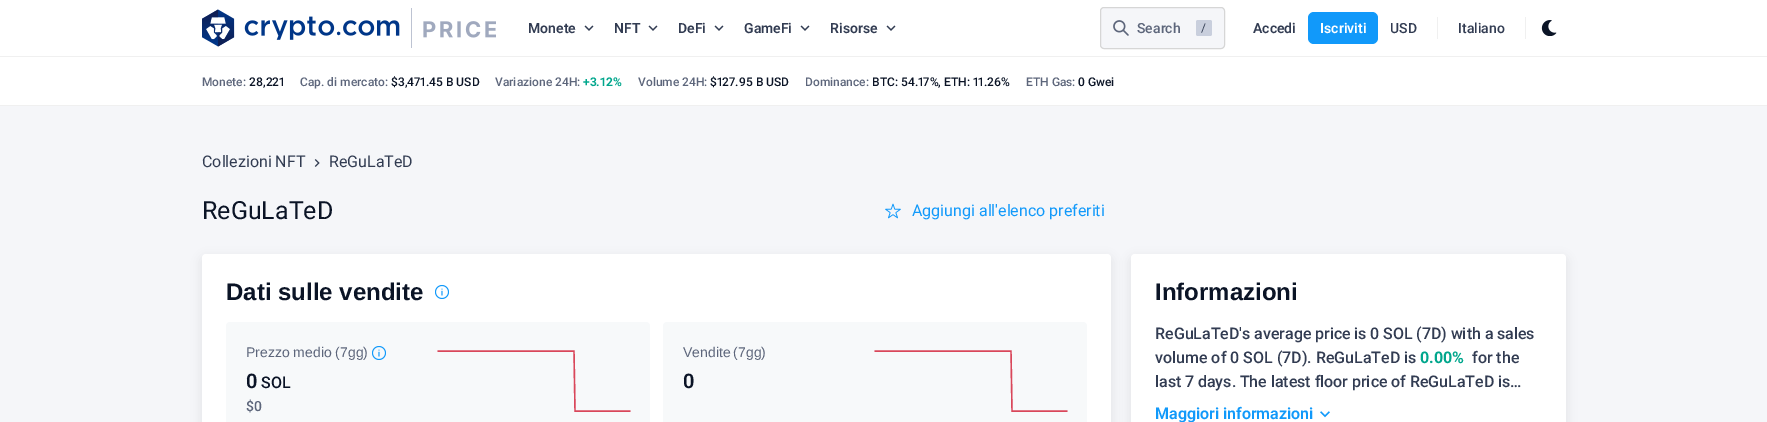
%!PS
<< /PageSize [1767 422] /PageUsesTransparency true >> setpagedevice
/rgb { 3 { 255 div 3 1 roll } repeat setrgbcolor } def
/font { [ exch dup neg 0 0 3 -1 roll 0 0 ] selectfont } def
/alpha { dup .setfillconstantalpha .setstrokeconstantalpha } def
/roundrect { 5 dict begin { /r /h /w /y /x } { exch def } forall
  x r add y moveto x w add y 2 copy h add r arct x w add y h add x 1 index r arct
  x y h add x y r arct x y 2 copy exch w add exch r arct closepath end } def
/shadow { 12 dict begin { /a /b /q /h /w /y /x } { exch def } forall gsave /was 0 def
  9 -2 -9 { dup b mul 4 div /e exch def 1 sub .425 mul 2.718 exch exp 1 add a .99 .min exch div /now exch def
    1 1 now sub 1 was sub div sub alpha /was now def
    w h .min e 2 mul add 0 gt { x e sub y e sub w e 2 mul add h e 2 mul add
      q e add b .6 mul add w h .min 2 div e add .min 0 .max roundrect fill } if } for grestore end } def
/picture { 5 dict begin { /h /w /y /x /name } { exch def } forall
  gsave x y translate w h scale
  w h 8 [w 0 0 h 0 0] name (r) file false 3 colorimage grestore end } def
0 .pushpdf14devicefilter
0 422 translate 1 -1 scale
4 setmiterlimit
245 246 249 rgb
0 0 1767 422 rectfill
255 255 255 rgb
0 0 1767 56 rectfill
(img/1.rgb) 202 8 294 40 picture
(img/2.rgb) 584 25 10 6 picture
(img/2.rgb) 648 25 10 6 picture
(img/2.rgb) 714 25 10 6 picture
(img/2.rgb) 800 25 10 6 picture
(img/2.rgb) 886 25 10 6 picture
245 246 249 rgb
1100.5 7.5 124 41 3.5 roundrect gsave fill grestore
214 214 214 rgb
stroke
(img/3.rgb) 1113 20 16 16 picture
201 207 221 rgb
1196 20 16 16 2 roundrect fill
17 153 250 rgb
1308 12 70 32 6 roundrect fill
240 240 240 rgb
1437 17 1 22 rectfill
1525 17 1 22 rectfill
(img/4.rgb) 1541 20 16 16 picture
[
  [0 56 1767 1 240 240 240]
  [0 57 1767 48 255 255 255]
  [0 105 1767 1 240 240 240]
] { aload pop rgb rectfill } forall
(img/5.rgb) 314 159 6 8 picture
(img/6.rgb) 885 203 16 16 picture
0 0 0 rgb
199 255 915 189 7 5 0.05 shadow
255 255 255 rgb
202 254 909 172 4 roundrect fill
(img/7.rgb) 435 285 14 14 picture
247 249 250 rgb
226 322 424 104 4 roundrect fill
(img/8.rgb) 372 346 14 14 picture
217 71 90 rgb
1.4 setlinewidth
1 setlinecap
438 351 moveto 574 351 lineto 575 411 lineto 630 411 lineto stroke
247 249 250 rgb
663 322 424 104 4 roundrect fill
217 71 90 rgb
875 351 moveto 1011 351 lineto 1012 411 lineto 1067 411 lineto stroke
0 0 0 rgb
1128 255 441 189 7 5 0.05 shadow
255 255 255 rgb
1131 254 435 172 4 roundrect fill
(img/9.rgb) 1320 411 10 7 picture
/Roboto-SemiBold 14 font
50 60 82 rgb
[
  [(Monete) 528 33]
  [(NFT) 614 33]
  [(DeFi) 678 33]
  [(GameFi) 744 33]
  [(Risorse) 830 33]
] { aload pop moveto show } forall
/Roboto-Medium 14 font
93 102 123 rgb
1137 33 moveto (Search) show
/Roboto-Regular 12 font
50 60 82 rgb
1201 32 moveto (/) show
/Roboto-SemiBold 14 font
1253 33 moveto (Accedi) show
255 255 255 rgb
1320 33 moveto (Iscriviti) show
/Roboto-Medium 14 font
50 60 82 rgb
1390 33 moveto (USD) show
1458 33 moveto (Italiano) show
/Roboto-Medium 12 font
93 102 123 rgb
202 86 moveto (Monete:) show
/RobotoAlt-Medium 12 font
11 20 38 rgb
249 86 moveto (28,221) show
/Roboto-Medium 12 font
93 102 123 rgb
300 86 moveto (Cap. di mercato:) show
/RobotoAlt-Medium 12 font
11 20 38 rgb
391 86 moveto ($3,471.45 B USD) show
/Roboto-Medium 12 font
93 102 123 rgb
495 86 moveto (Variazione 24H:) show
/RobotoAlt-Bold 12 font
0 166 140 rgb
583 86 moveto (+3.12%) show
/Roboto-Medium 12 font
93 102 123 rgb
638 86 moveto (Volume 24H:) show
/RobotoAlt-Medium 12 font
11 20 38 rgb
710 86 moveto ($127.95 B USD) show
/Roboto-Medium 12 font
93 102 123 rgb
805 86 moveto (Dominance:) show
/RobotoAlt-Medium 12 font
11 20 38 rgb
872 86 moveto (BTC: 54.17%, ETH: 11.26%) show
/Roboto-Medium 12 font
93 102 123 rgb
1026 86 moveto (ETH Gas:) show
11 20 38 rgb
1078 86 moveto (0 Gwei) show
/Roboto-Regular 16 font
50 60 82 rgb
202 167 moveto (Collezioni NFT) show
329 167 moveto (ReGuLaTeD) show
/Roboto-Regular 25 font
11 20 38 rgb
202 219 moveto (ReGuLaTeD) show
/Roboto-Regular 16 font
17 153 250 rgb
912 216 moveto (Aggiungi all'elenco preferiti) show
/LiberationSans-Bold 24 font
11 20 38 rgb
226 300 moveto (Dati sulle vendite) show
/LiberationSans-Regular 14 font
93 102 123 rgb
246 357 moveto (Prezzo medio \(7gg\)) show
/Roboto-SemiBold 20 font
11 20 38 rgb
246 388 moveto (0) show
/Roboto-Medium 16 font
261 388 moveto (SOL) show
/Roboto-Medium 14 font
93 102 123 rgb
246 411 moveto ($0) show
/LiberationSans-Regular 14 font
683 357 moveto -1 0 32 (Vendite \(7gg\)) widthshow
/Roboto-SemiBold 20 font
11 20 38 rgb
683 388 moveto (0) show
/LiberationSans-Bold 24 font
1155 300 moveto (Informazioni) show
/Roboto-Medium 16 font
50 60 82 rgb
1155 339 moveto -0.25 0 32 (ReGuLaTeD's average price is 0 SOL \(7D\) with a sales) widthshow
1155 363 moveto (volume of 0 SOL \(7D\). ReGuLaTeD is) show
/Roboto-Bold 16 font
0 166 140 rgb
1420 363 moveto (0.00%) show
/Roboto-Medium 16 font
50 60 82 rgb
1472 363 moveto (for the) show
1155 387 moveto -0.25 0 32 (last 7 days. The latest floor price of ReGuLaTeD is…) widthshow
/Roboto-SemiBold 16 font
17 153 250 rgb
1155 419 moveto (Maggiori informazioni) show
.poppdf14devicefilter showpage
